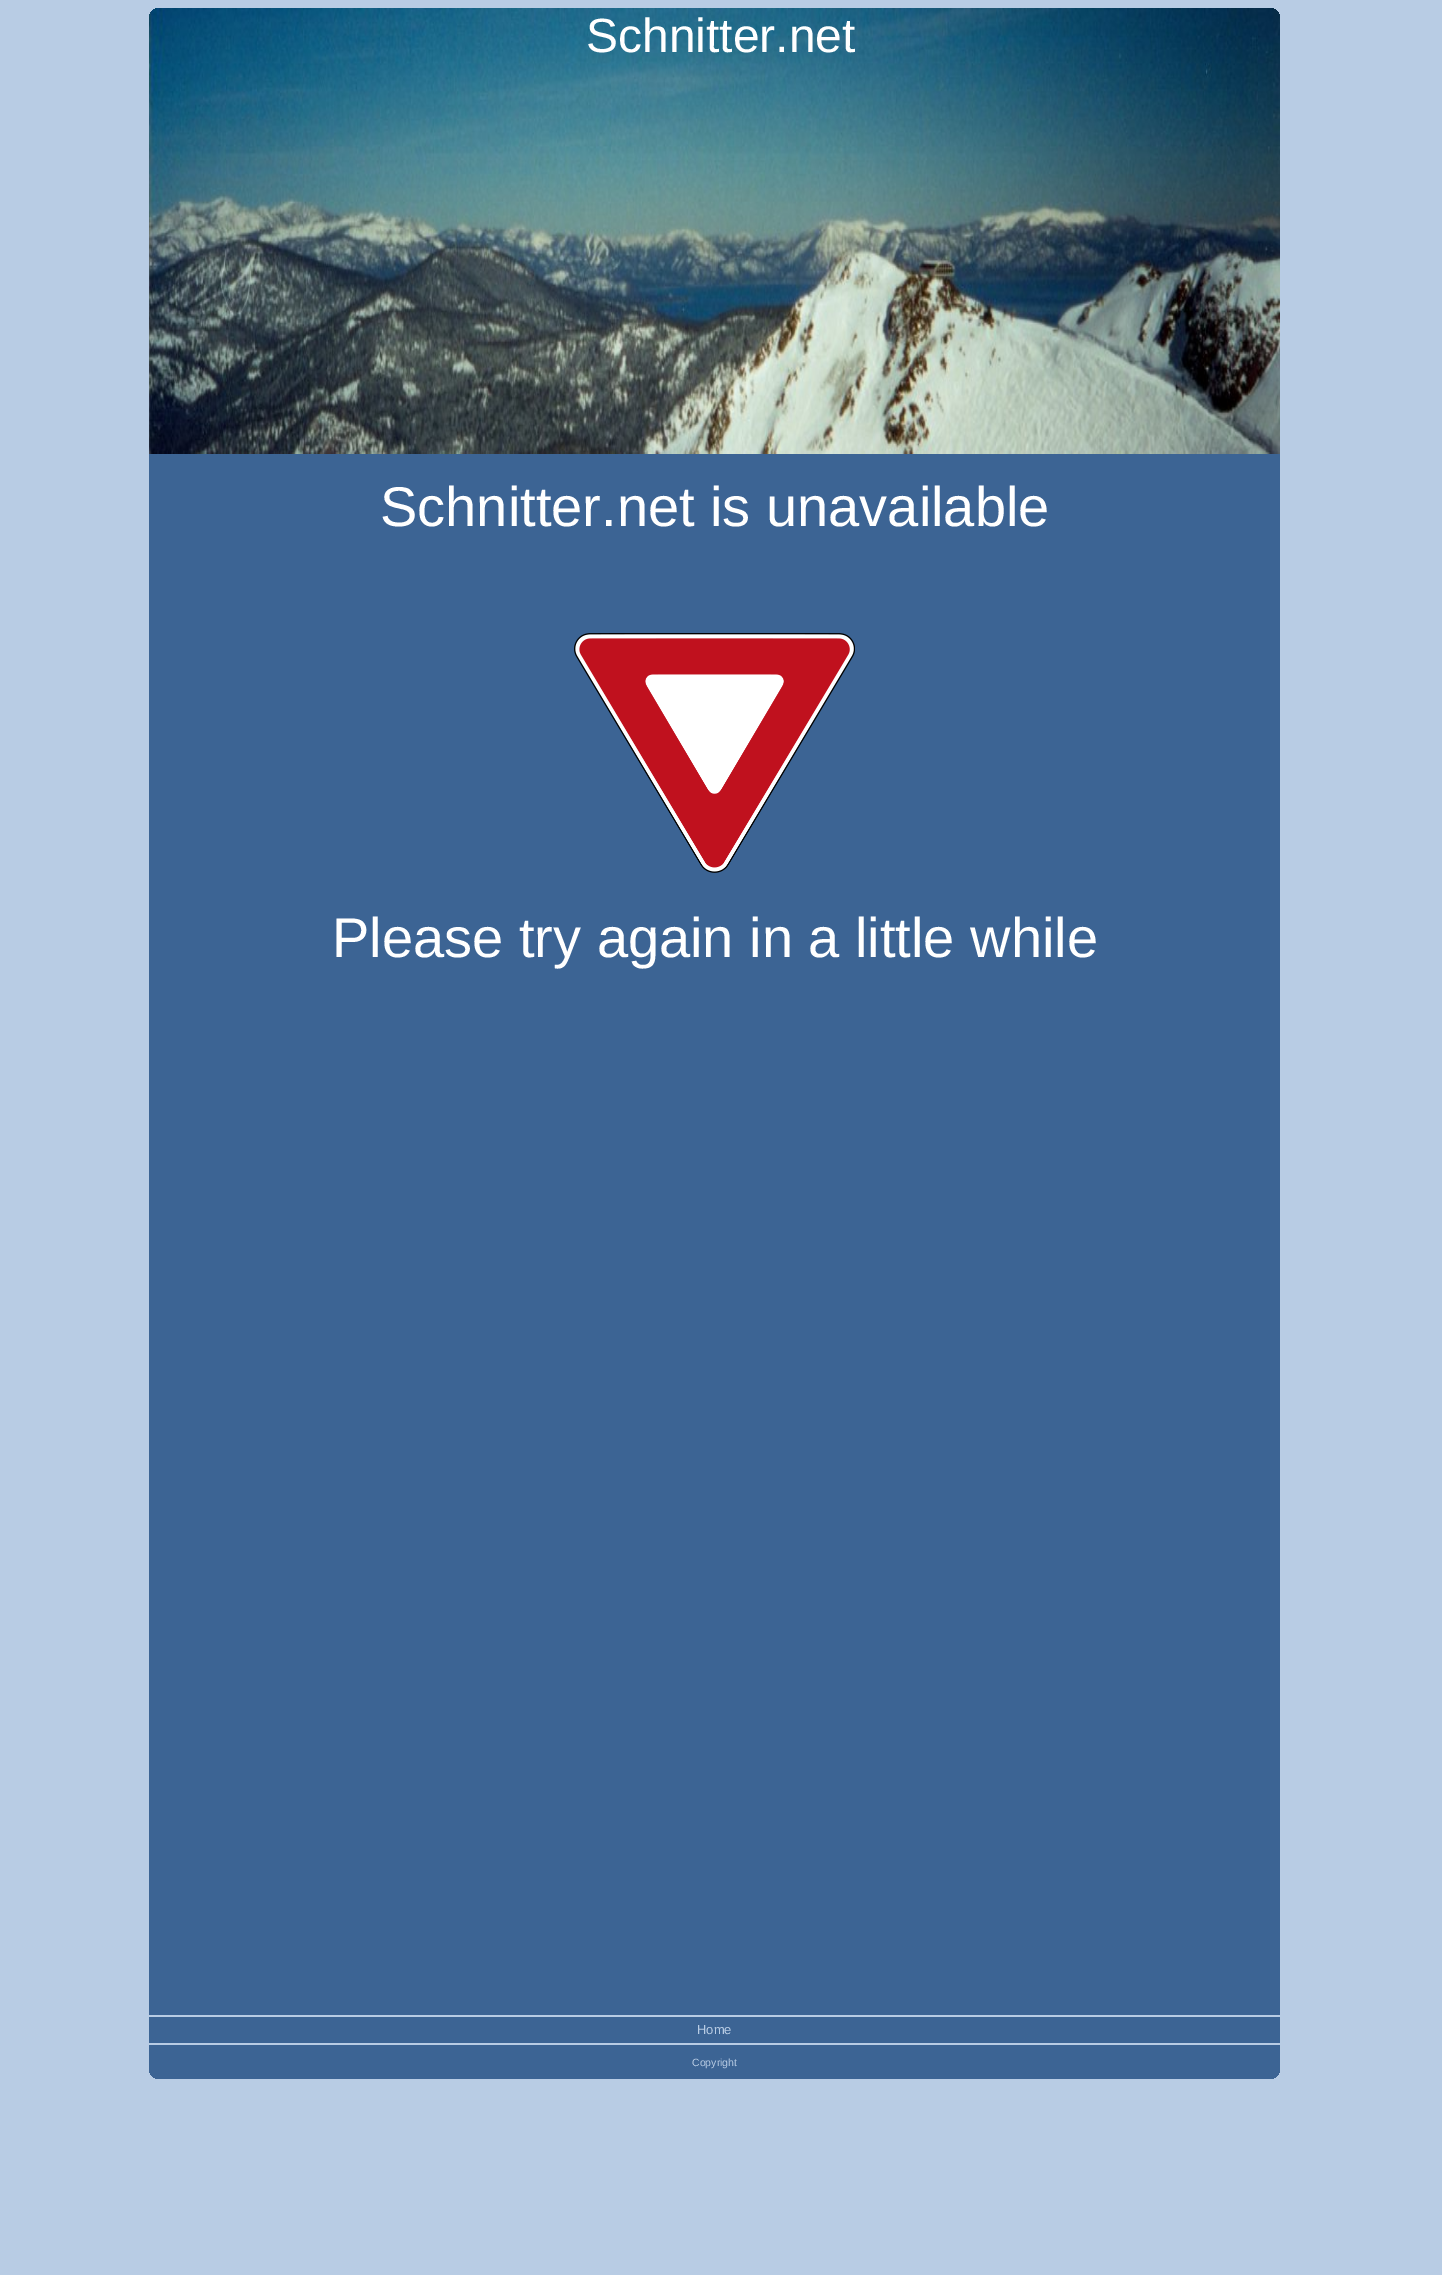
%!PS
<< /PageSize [1442 2275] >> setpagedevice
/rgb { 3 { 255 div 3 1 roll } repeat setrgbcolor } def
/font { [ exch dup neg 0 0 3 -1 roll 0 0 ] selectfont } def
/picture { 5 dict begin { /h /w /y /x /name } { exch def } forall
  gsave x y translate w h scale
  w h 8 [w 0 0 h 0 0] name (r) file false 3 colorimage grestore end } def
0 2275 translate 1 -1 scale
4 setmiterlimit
184 204 228 rgb
0 0 1442 2275 rectfill
(img/1.rgb) 149 8 1131 446 picture
(img/2.rgb) 149 8 6 6 picture
(img/3.rgb) 1274 8 6 6 picture
60 100 148 rgb
149 454 1131 1561 rectfill
(img/4.rgb) 574 633 281 240 picture
149 2017 1131 62 rectfill
184 204 228 rgb
149 2043 1131 2 rectfill
(img/5.rgb) 149 2073 6 6 picture
(img/6.rgb) 1274 2073 6 6 picture
/LiberationSans-Regular 48 font
255 255 255 rgb
586 52 moveto (Schnitter.net) show
/LiberationSans-Regular 56 font
380 526 moveto (Schnitter.net is unavailable) show
332 957 moveto (Please try again in a little while) show
/LiberationSans-Regular 13 font
184 204 228 rgb
697 2034 moveto (Home) show
/LiberationSans-Regular 10.5 font
692 2066 moveto (Copyright) show
showpage
